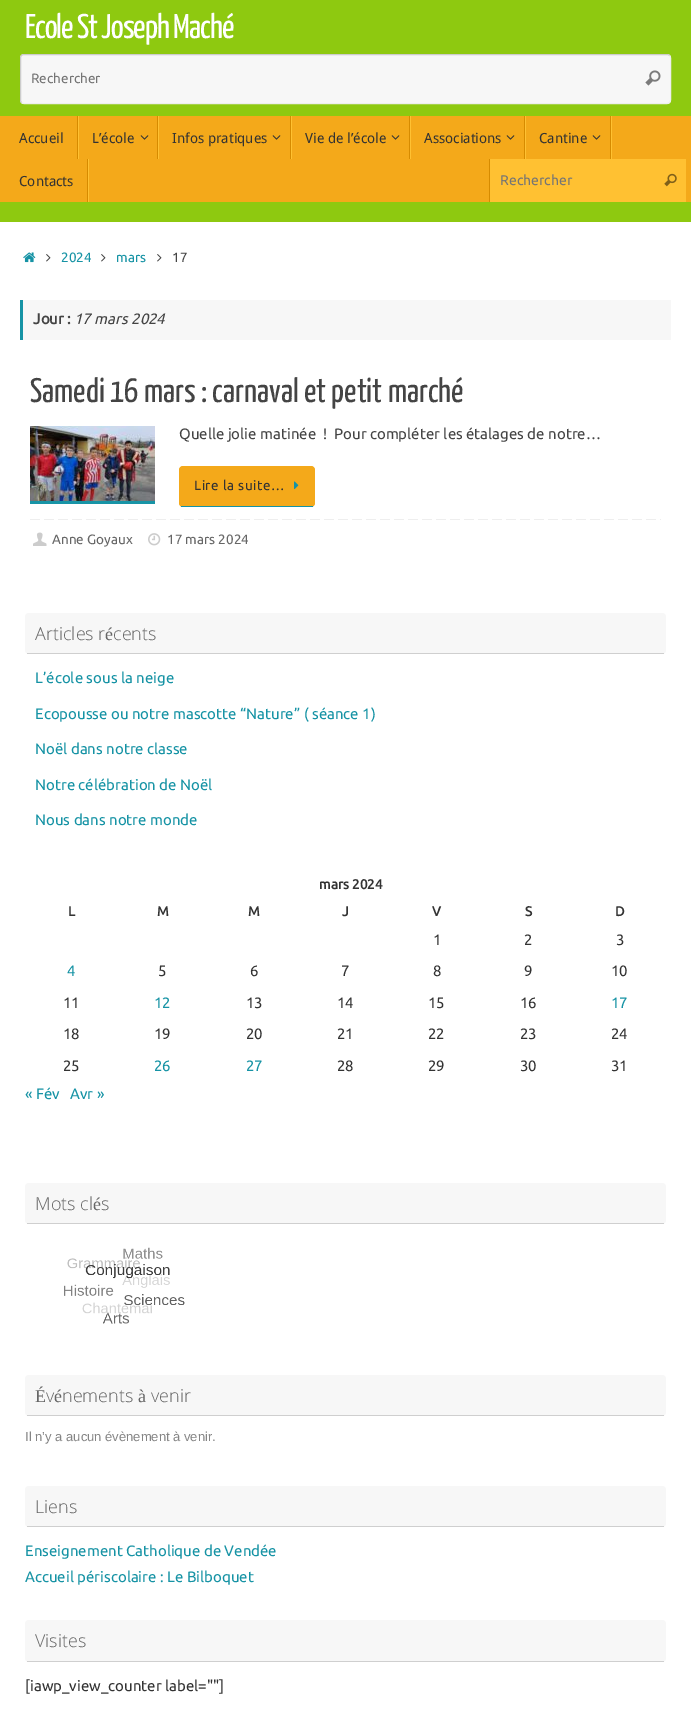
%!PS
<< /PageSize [691 1711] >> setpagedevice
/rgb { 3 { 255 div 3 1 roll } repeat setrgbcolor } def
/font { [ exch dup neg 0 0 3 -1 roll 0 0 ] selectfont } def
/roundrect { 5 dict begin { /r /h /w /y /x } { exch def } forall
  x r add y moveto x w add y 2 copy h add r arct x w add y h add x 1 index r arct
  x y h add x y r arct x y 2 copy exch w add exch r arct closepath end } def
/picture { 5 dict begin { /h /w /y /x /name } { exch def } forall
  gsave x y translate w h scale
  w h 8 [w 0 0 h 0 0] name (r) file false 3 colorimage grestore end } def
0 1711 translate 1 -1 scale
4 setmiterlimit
142 201 16 rgb
0 0 691 1711 rectfill
247 247 247 rgb
20 54 651 50 4 roundrect fill
238 238 238 rgb
669.5 55.5 moveto 670 56 670.5 57 670.5 58 curveto 670.5 100 lineto 670.5 101 670 102 669.5 102.5 curveto 669 103 668 103.5 667 103.5 curveto 24 103.5 lineto 23 103.5 22 103 21.5 102.5 curveto stroke
204 204 204 rgb
21.5 102.5 moveto 21 102 20.5 101 20.5 100 curveto 20.5 58 lineto 20.5 57 21 56 21.5 55.5 curveto 22 55 23 54.5 24 54.5 curveto 667 54.5 lineto 668 54.5 669 55 669.5 55.5 curveto stroke
(img/1.rgb) 645 70 16 16 picture
[
  [0 116 691 86 244 169 26]
  [78 116 1 43 255 193 50]
  [77 116 1 43 214 139 0]
  [158 116 1 43 255 193 50]
  [157 116 1 43 214 139 0]
] { aload pop rgb rectfill } forall
(img/2.rgb) 140 135 9 5 picture
255 193 50 rgb
291 116 1 43 rectfill
214 139 0 rgb
290 116 1 43 rectfill
(img/2.rgb) 272 135 9 5 picture
255 193 50 rgb
410 116 1 43 rectfill
214 139 0 rgb
409 116 1 43 rectfill
(img/2.rgb) 391 135 9 5 picture
255 193 50 rgb
525 116 1 43 rectfill
214 139 0 rgb
524 116 1 43 rectfill
(img/2.rgb) 506 135 9 5 picture
255 193 50 rgb
611 116 1 43 rectfill
214 139 0 rgb
610 116 1 43 rectfill
(img/2.rgb) 592 135 9 5 picture
[
  [88 159 1 43 255 193 50]
  [87 159 1 43 214 139 0]
  [490 159 196 43 255 193 50]
  [489 159 1 43 214 139 0]
] { aload pop rgb rectfill } forall
(img/3.rgb) 664 173 13 14 picture
255 255 255 rgb
0 222 691 1489 rectfill
(img/4.rgb) 23 252 13 11 picture
(img/5.rgb) 46 254 5 8 picture
(img/5.rgb) 101 254 5 8 picture
(img/5.rgb) 157 254 5 8 picture
[
  [23 300 648 40 247 247 247]
  [20 300 3 40 22 147 165]
  [30 501 125 3 24 148 166]
] { aload pop rgb rectfill } forall
(img/6.rgb) 30 426 125 75 picture
244 169 26 rgb
179 466 136 41 4 roundrect fill
22 147 165 rgb
181 506 132 1 rectfill
(img/7.rgb) 294 481 5 9 picture
(img/8.rgb) 30 519 631 1 picture
(img/9.rgb) 33 532 14 14 picture
(img/10.rgb) 148 533 13 13 picture
247 247 247 rgb
25 613 641 41 4 roundrect fill
207 207 207 rgb
27 653 637 1 rectfill
247 247 247 rgb
25 1183 641 41 4 roundrect fill
207 207 207 rgb
27 1223 637 1 rectfill
(img/11.rgb) 64 1247 121 77 picture
247 247 247 rgb
25 1375 641 41 4 roundrect fill
207 207 207 rgb
27 1415 637 1 rectfill
247 247 247 rgb
25 1486 641 41 4 roundrect fill
207 207 207 rgb
27 1526 637 1 rectfill
247 247 247 rgb
25 1620 641 42 4 roundrect fill
207 207 207 rgb
27 1661 637 1 rectfill
/YanoneKaffeesatz-Regular 34.25 font
255 255 255 rgb
25 38 moveto -1 0 (Ecole St Joseph Maché) ashow
/Ubuntu-Regular 13.5 font
117 117 117 rgb
31 83 moveto (Rechercher) show
/DroidSans-Regular 14 font
51 51 51 rgb
[
  [(Accueil) 19 143]
  [(L’école) 92 143]
  [(Infos pratiques) 172 143]
  [(Vie de l’école) 305 143]
  [(Associations) 424 143]
  [(Cantine) 539 143]
  [(Contacts) 19 186]
] { aload pop moveto show } forall
/Ubuntu-Regular 14 font
117 117 117 rgb
500 185 moveto (Rechercher) show
/Ubuntu-Regular 13.5 font
22 147 165 rgb
61 262 moveto (2024) show
116 262 moveto (mars) show
68 68 68 rgb
172 262 moveto (17) show
/Ubuntu-Bold 15 font
33 324 moveto (Jour :) show
/Ubuntu-Italic 15 font
74 324 moveto (17 mars 2024) show
/YanoneKaffeesatz-Regular 34 font
30 402 moveto (Samedi 16 mars : carnaval et petit marché) show
/Ubuntu-Regular 15 font
179 439 moveto (Quelle jolie matinée  !  Pour compléter les étalages de notre…) show
/Ubuntu-Regular 13.5 font
51 51 51 rgb
194 490 moveto 0.5 0 (Lire la suite…) ashow
102 102 102 rgb
52 544 moveto (Anne Goyaux) show
167 544 moveto (17 mars 2024) show
/OpenSans-Light 18 font
35 640 moveto (Articles r) show
/LiberationSerif-Regular 18 font
105 640 moveto (é) show
/OpenSans-Light 18 font
113 640 moveto (cents) show
/Ubuntu-Regular 15 font
22 147 165 rgb
[
  [(L’école sous la neige) 35 683]
  [(Ecopousse ou notre mascotte “Nature” \( séance 1\)) 35 719]
  [(Noël dans notre classe) 35 754]
  [(Notre célébration de Noël) 35 790]
  [(Nous dans notre monde) 35 825]
] { aload pop moveto show } forall
/Ubuntu-Bold 13.5 font
51 51 51 rgb
[
  [(mars 2024) 319 889]
  [(L) 68 916]
  [(M) 157 916]
  [(M) 248 916]
  [(J) 342 916]
  [(V) 432 916]
  [(S) 525 916]
  [(D) 615 916]
] { aload pop moveto show } forall
/Ubuntu-Regular 15 font
[
  [(1) 433 945]
  [(2) 524 945]
  [(3) 616 945]
] { aload pop moveto show } forall
22 147 165 rgb
67 976 moveto (4) show
51 51 51 rgb
[
  [(5) 158 976]
  [(6) 250 976]
  [(7) 341 976]
  [(8) 433 976]
  [(9) 524 976]
  [(10) 611 976]
  [(11) 63 1008]
] { aload pop moveto show } forall
22 147 165 rgb
154 1008 moveto (12) show
51 51 51 rgb
[
  [(13) 246 1008]
  [(14) 337 1008]
  [(15) 428 1008]
  [(16) 520 1008]
] { aload pop moveto show } forall
22 147 165 rgb
611 1008 moveto (17) show
51 51 51 rgb
[
  [(18) 63 1039]
  [(19) 154 1039]
  [(20) 246 1039]
  [(21) 337 1039]
  [(22) 428 1039]
  [(23) 520 1039]
  [(24) 611 1039]
  [(25) 63 1071]
] { aload pop moveto show } forall
22 147 165 rgb
154 1071 moveto (26) show
246 1071 moveto (27) show
51 51 51 rgb
[
  [(28) 337 1071]
  [(29) 428 1071]
  [(30) 520 1071]
  [(31) 611 1071]
] { aload pop moveto show } forall
22 147 165 rgb
25 1099 moveto (« Fév) show
70 1099 moveto (Avr ») show
/OpenSans-Light 18 font
102 102 102 rgb
35 1210 moveto (Mots cl) show
/LiberationSerif-Regular 18 font
93 1210 moveto (é) show
/OpenSans-Light 18 font
101 1210 moveto (s) show
/LiberationSerif-Regular 18 font
35 1402 moveto (É) show
/OpenSans-Light 18 font
46 1402 moveto (v) show
/LiberationSerif-Regular 18 font
54 1402 moveto (é) show
/OpenSans-Light 18 font
62 1402 moveto (nements) show
/LiberationSerif-Regular 18 font
138 1402 moveto (à) show
/OpenSans-Light 18 font
151 1402 moveto (venir) show
/LiberationSans-Regular 13 font
133 133 133 rgb
25 1441 moveto (Il n’y a aucun évènement à venir.) show
/OpenSans-Light 18 font
102 102 102 rgb
35 1513 moveto (Liens) show
/Ubuntu-Regular 15 font
22 147 165 rgb
25 1556 moveto (Enseignement Catholique de Vendée) show
25 1582 moveto (Accueil périscolaire : Le Bilboquet) show
/OpenSans-Light 18 font
102 102 102 rgb
35 1647 moveto (Visites) show
/Ubuntu-Regular 15 font
51 51 51 rgb
25 1691 moveto ([iawp_view_counter label=""]) show
showpage
